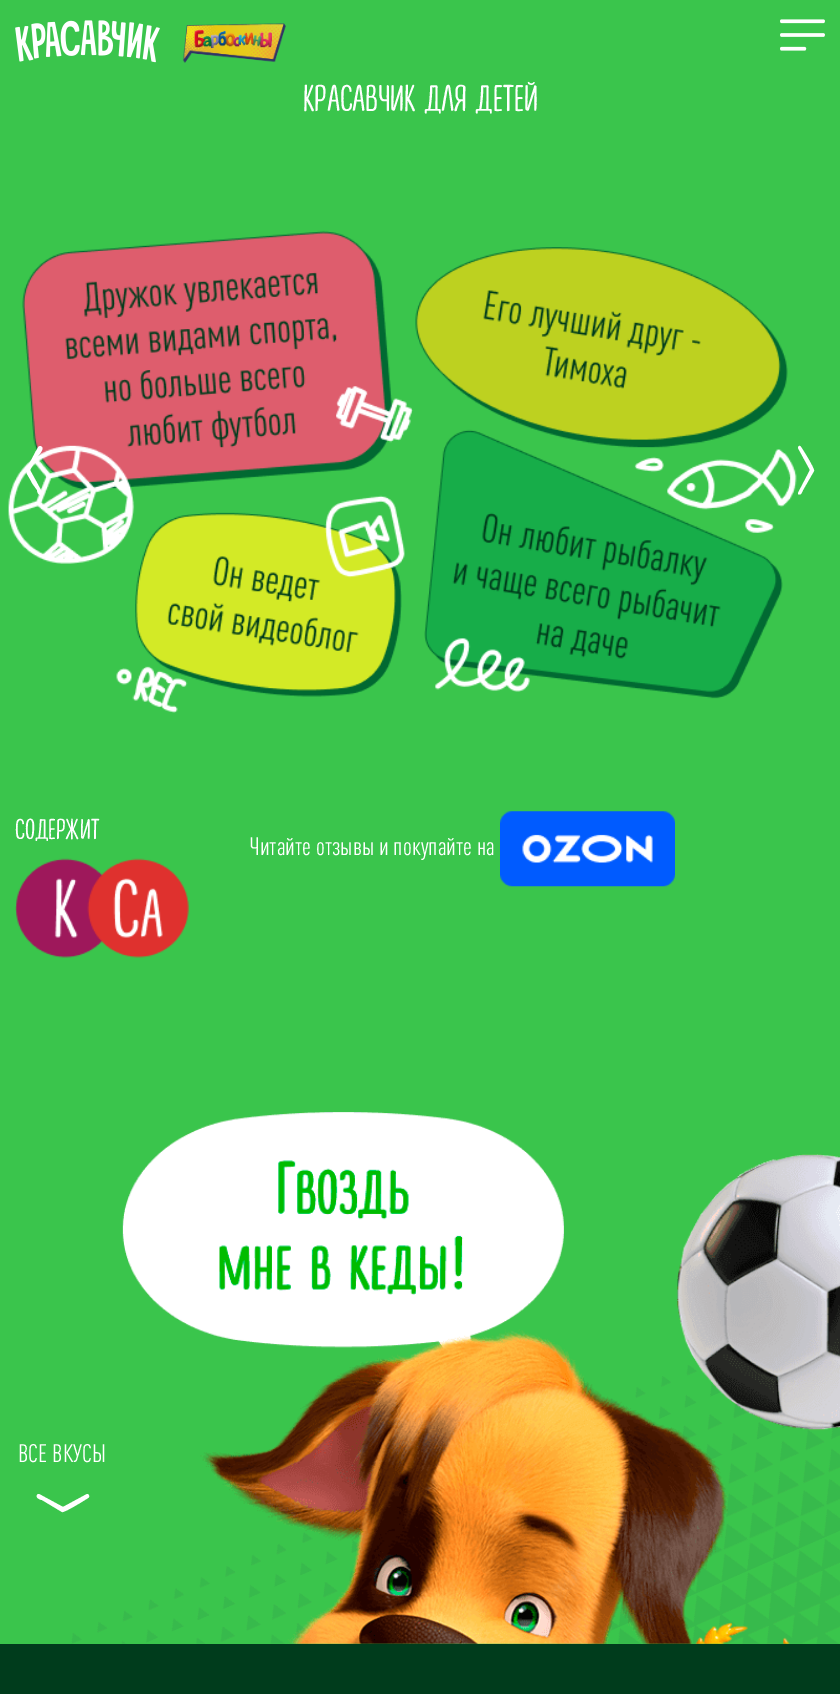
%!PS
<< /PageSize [840 1694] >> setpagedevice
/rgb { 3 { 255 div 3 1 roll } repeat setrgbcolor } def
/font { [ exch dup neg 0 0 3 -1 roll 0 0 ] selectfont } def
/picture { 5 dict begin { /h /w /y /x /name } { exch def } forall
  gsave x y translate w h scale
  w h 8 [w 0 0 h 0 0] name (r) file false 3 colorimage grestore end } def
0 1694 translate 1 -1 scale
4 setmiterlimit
58 197 76 rgb
0 0 840 1694 rectfill
(img/1.rgb) 15 20 145 43 picture
(img/2.rgb) 182 23 104 40 picture
(img/3.rgb) 780 19 45 32 picture
(img/4.rgb) 71 1329 769 315 picture
(img/5.rgb) 8 230 789 483 picture
(img/6.rgb) 15 858 174 100 picture
(img/7.rgb) 500 811 175 76 picture
255 255 255 rgb
30 470 moveto 38 456 lineto 39 455 46 447 40 446 curveto 38 446 37 450 36 451 curveto 26 470 lineto 25 472 31 480 32 483 curveto 37 490 lineto 37 492 39 497 42 494 curveto 43 493 43 492 42 492 curveto closepath fill
810 470 moveto 798 448 lineto 798 446 800 445 801 447 curveto 803 450 815 469 814 471 curveto 803 490 lineto 802 492 801 496 798 494 curveto 798 493 lineto closepath fill
63 1507 moveto 87 1494 lineto 89 1494 90 1497 88 1498 curveto 85 1500 64 1513 62 1512 curveto 42 1500 lineto 40 1500 34 1497 38 1494 curveto 39 1494 lineto closepath fill
(img/8.rgb) 122 1112 718 532 picture
0 60 28 rgb
0 1644 840 50 rectfill
/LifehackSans-Regular 37.5 font
255 255 255 rgb
303 111 moveto (КРАСАВЧИК ДЛЯ ДЕТЕЙ) show
/LifehackSans-Regular 29 font
15 839 moveto (СОДЕРЖИТ) show
/DIN-Regular 25 font
249 855 moveto (Читайте отзывы и покупайте на) show
18 1462 moveto (ВСЕ ВКУСЫ) show
showpage
